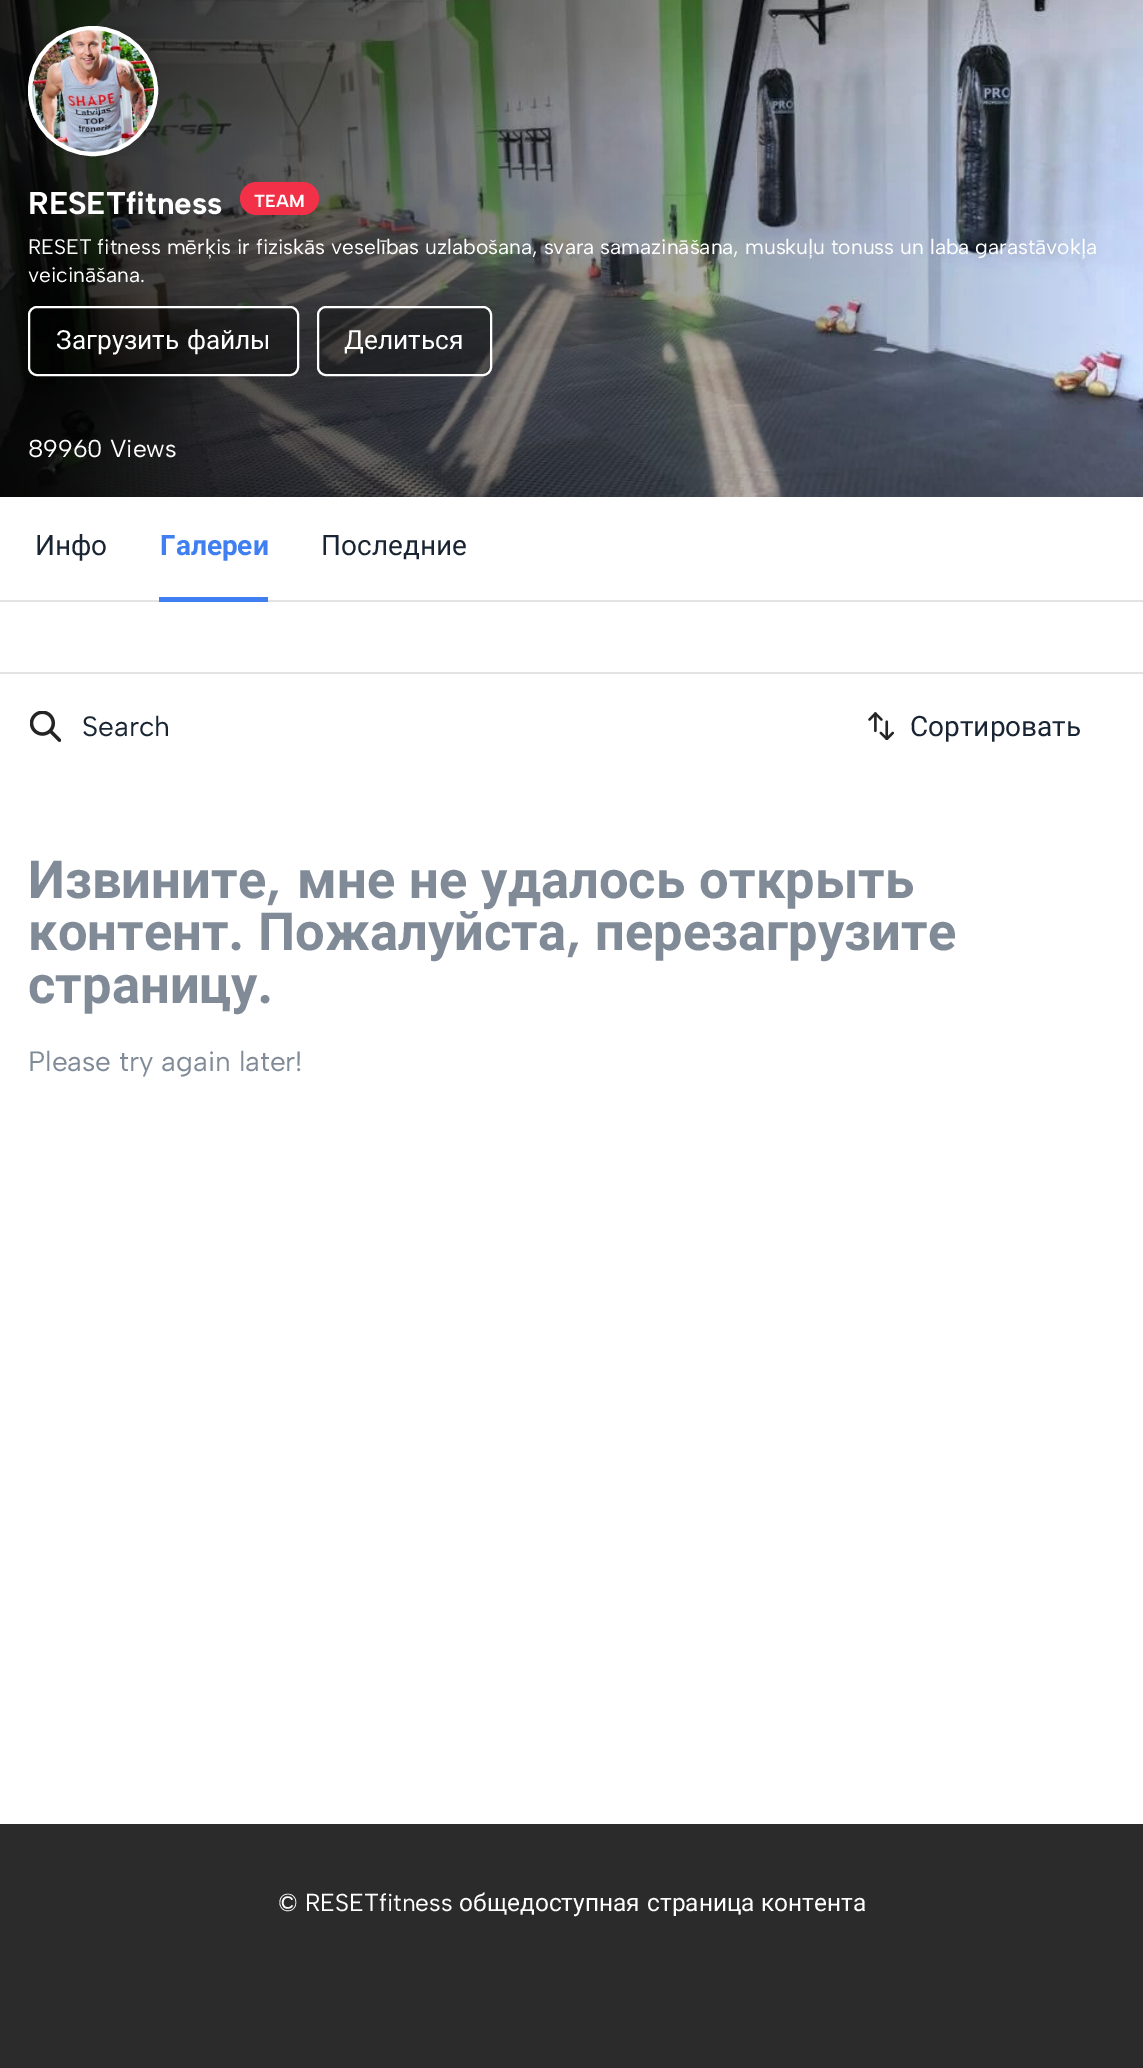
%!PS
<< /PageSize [1143 2068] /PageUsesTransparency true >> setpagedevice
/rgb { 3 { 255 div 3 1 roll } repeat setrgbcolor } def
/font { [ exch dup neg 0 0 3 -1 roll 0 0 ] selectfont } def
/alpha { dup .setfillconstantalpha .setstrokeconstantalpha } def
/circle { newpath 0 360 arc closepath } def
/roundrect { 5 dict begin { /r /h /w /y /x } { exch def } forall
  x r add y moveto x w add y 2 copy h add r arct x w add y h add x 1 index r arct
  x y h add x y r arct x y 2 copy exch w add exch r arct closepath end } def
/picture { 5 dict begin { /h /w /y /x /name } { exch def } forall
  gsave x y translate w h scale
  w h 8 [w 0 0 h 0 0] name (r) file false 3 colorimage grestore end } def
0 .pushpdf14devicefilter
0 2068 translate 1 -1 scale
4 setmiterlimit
255 255 255 rgb
0 0 1143 2068 rectfill
(img/1.rgb) 0 0 1143 497 picture
(img/2.rgb) 28 26 130 130 picture
4 setlinewidth
93 91 63 circle stroke
242 48 71 rgb
240 182 79 33 16.5 roundrect fill
0.32 alpha
0 0 0 rgb
29 307 269 68 8 roundrect fill
1 alpha
255 255 255 rgb
2 setlinewidth
29 307 269 68 8 roundrect stroke
0.32 alpha
0 0 0 rgb
318 307 173 68 8 roundrect fill
1 alpha
255 255 255 rgb
318 307 173 68 8 roundrect stroke
[
  [0 600 1143 2 227 227 227]
  [159 597 109 5 64 127 242]
  [0 672 1143 2 227 227 227]
] { aload pop rgb rectfill } forall
(img/3.rgb) 30 711 31 31 picture
(img/4.rgb) 868 712 26 28 picture
43 43 43 rgb
0 1824 1143 244 rectfill
/AlbertSans-Bold 31.5 font
255 255 255 rgb
28 214 moveto (RESETfitness) show
/AlbertSans-Bold 17.5 font
254 207 moveto (TEAM) show
/AlbertSans-Regular 21 font
28 254 moveto (RESET fitness mērķis ir fiziskās veselības uzlabošana, svara samazināšana, muskuļu tonuss un laba garastāvokļa) show
28 282 moveto (veicināšana.) show
/Roboto-Regular 26.25 font
56 349 moveto 1 0 32 (Загрузить файлы) widthshow
344 349 moveto (Делиться) show
/AlbertSans-Regular 24.5 font
28 457 moveto (89960 Views) show
/Roboto-Regular 28 font
26 37 51 rgb
35 555 moveto (Инфо) show
/Roboto-Bold 28 font
64 127 242 rgb
160 555 moveto (Галереи) show
/Roboto-Regular 28 font
26 37 51 rgb
321 555 moveto (Последние) show
/AlbertSans-Regular 28 font
82 736 moveto (Search) show
/Roboto-Regular 28 font
910 736 moveto (Сортировать) show
/Roboto-Bold 52.5 font
128 139 151 rgb
28 898 moveto (Извините) show
/AlbertSans-Bold 52.5 font
266 898 moveto (,) show
/Roboto-Bold 52.5 font
297 898 moveto 1 0 32 (мне не удалось открыть) widthshow
28 950 moveto (контент) show
/AlbertSans-Bold 52.5 font
229 950 moveto (.) show
/Roboto-Bold 52.5 font
258 950 moveto (Пожалуйста) show
/AlbertSans-Bold 52.5 font
566 950 moveto (,) show
/Roboto-Bold 52.5 font
595 950 moveto (перезагрузите) show
28 1003 moveto (страницу) show
/AlbertSans-Bold 52.5 font
258 1003 moveto (.) show
/AlbertSans-Regular 28 font
28 1071 moveto (Please try again later!) show
/AlbertSans-Regular 24.5 font
255 255 255 rgb
278 1911 moveto (© RESETfitness) show
/Roboto-Regular 24.5 font
[
  [(общедоступная) 459 1911]
  [(страница) 647 1911]
  [(контента) 761 1911]
] { aload pop moveto show } forall
.poppdf14devicefilter showpage
